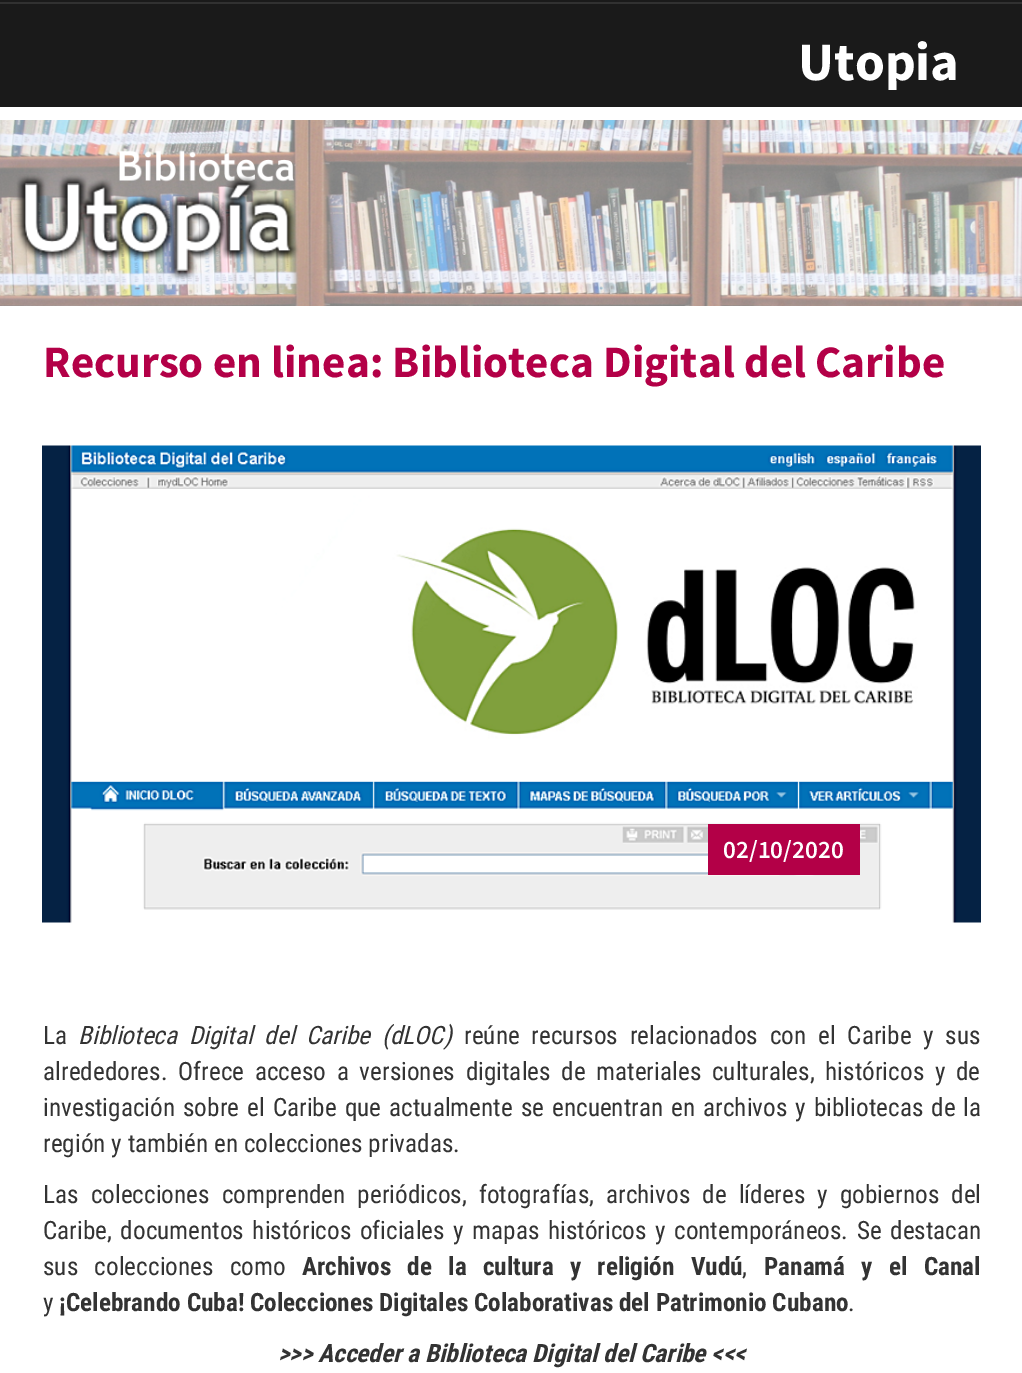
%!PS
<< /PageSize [1022 1373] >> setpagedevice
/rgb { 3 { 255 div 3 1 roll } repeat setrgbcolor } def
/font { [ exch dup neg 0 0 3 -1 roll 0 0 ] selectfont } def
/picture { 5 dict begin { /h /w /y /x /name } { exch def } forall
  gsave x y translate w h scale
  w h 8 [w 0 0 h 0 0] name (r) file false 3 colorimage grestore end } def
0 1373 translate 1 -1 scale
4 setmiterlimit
255 255 255 rgb
0 0 1022 1373 rectfill
26 26 26 rgb
0 0 1022 107 rectfill
49 49 49 rgb
0 2 1022 2 rectfill
(img/1.rgb) 0 120 1022 186 picture
(img/2.rgb) 42 445 939 478 picture
179 0 71 rgb
708 824 152 51 rectfill
/SourceSansPro-Bold 54 font
255 255 255 rgb
798 80 moveto (Utopia) show
/SourceSansPro-Bold 45 font
179 0 71 rgb
43 377 moveto (Recurso en linea: Biblioteca Digital del Caribe) show
/SourceSansPro-SemiBold 25.2 font
255 255 255 rgb
723 858 moveto (02/10/2020) show
/RobotoCondensed-Regular 25.2 font
51 51 51 rgb
43 1044 moveto (La) show
/RobotoCondensed-Italic 25.2 font
78 1044 moveto 6 0 32 (Biblioteca Digital del Caribe \(dLOC\)) widthshow
/RobotoCondensed-Regular 25.2 font
464 1044 moveto 6 0 32 (reúne recursos relacionados con el Caribe y sus) widthshow
43 1080 moveto 4.9 0 32 (alrededores. Ofrece acceso a versiones digitales de materiales culturales, históricos y de) widthshow
43 1116 moveto 2.25 0 32 (investigación sobre el Caribe que actualmente se encuentran en archivos y bibliotecas de la) widthshow
43 1152 moveto (región y también en colecciones privadas.) show
43 1203 moveto 6.25 0 32 (Las colecciones comprenden periódicos, fotografías, archivos de líderes y gobiernos del) widthshow
43 1239 moveto 2.75 0 32 (Caribe, documentos históricos oficiales y mapas históricos y contemporáneos. Se destacan) widthshow
43 1275 moveto 10.5 0 32 (sus colecciones como) widthshow
/RobotoCondensed-Bold 25.2 font
302 1275 moveto 10.5 0 32 (Archivos de la cultura y religión Vudú) widthshow
/RobotoCondensed-Regular 25.2 font
742 1275 moveto (,) show
/RobotoCondensed-Bold 25.2 font
764 1275 moveto 10.5 0 32 (Panamá y el Canal) widthshow
/RobotoCondensed-Regular 25.2 font
43 1311 moveto (y) show
/RobotoCondensed-Bold 25.2 font
59 1311 moveto (¡Celebrando Cuba! Colecciones Digitales Colaborativas del Patrimonio Cubano) show
/RobotoCondensed-Regular 25.2 font
848 1311 moveto (.) show
/RobotoCondensed-BoldItalic 25.2 font
278 1362 moveto (>>> Acceder a Biblioteca Digital del Caribe <<<) show
showpage
